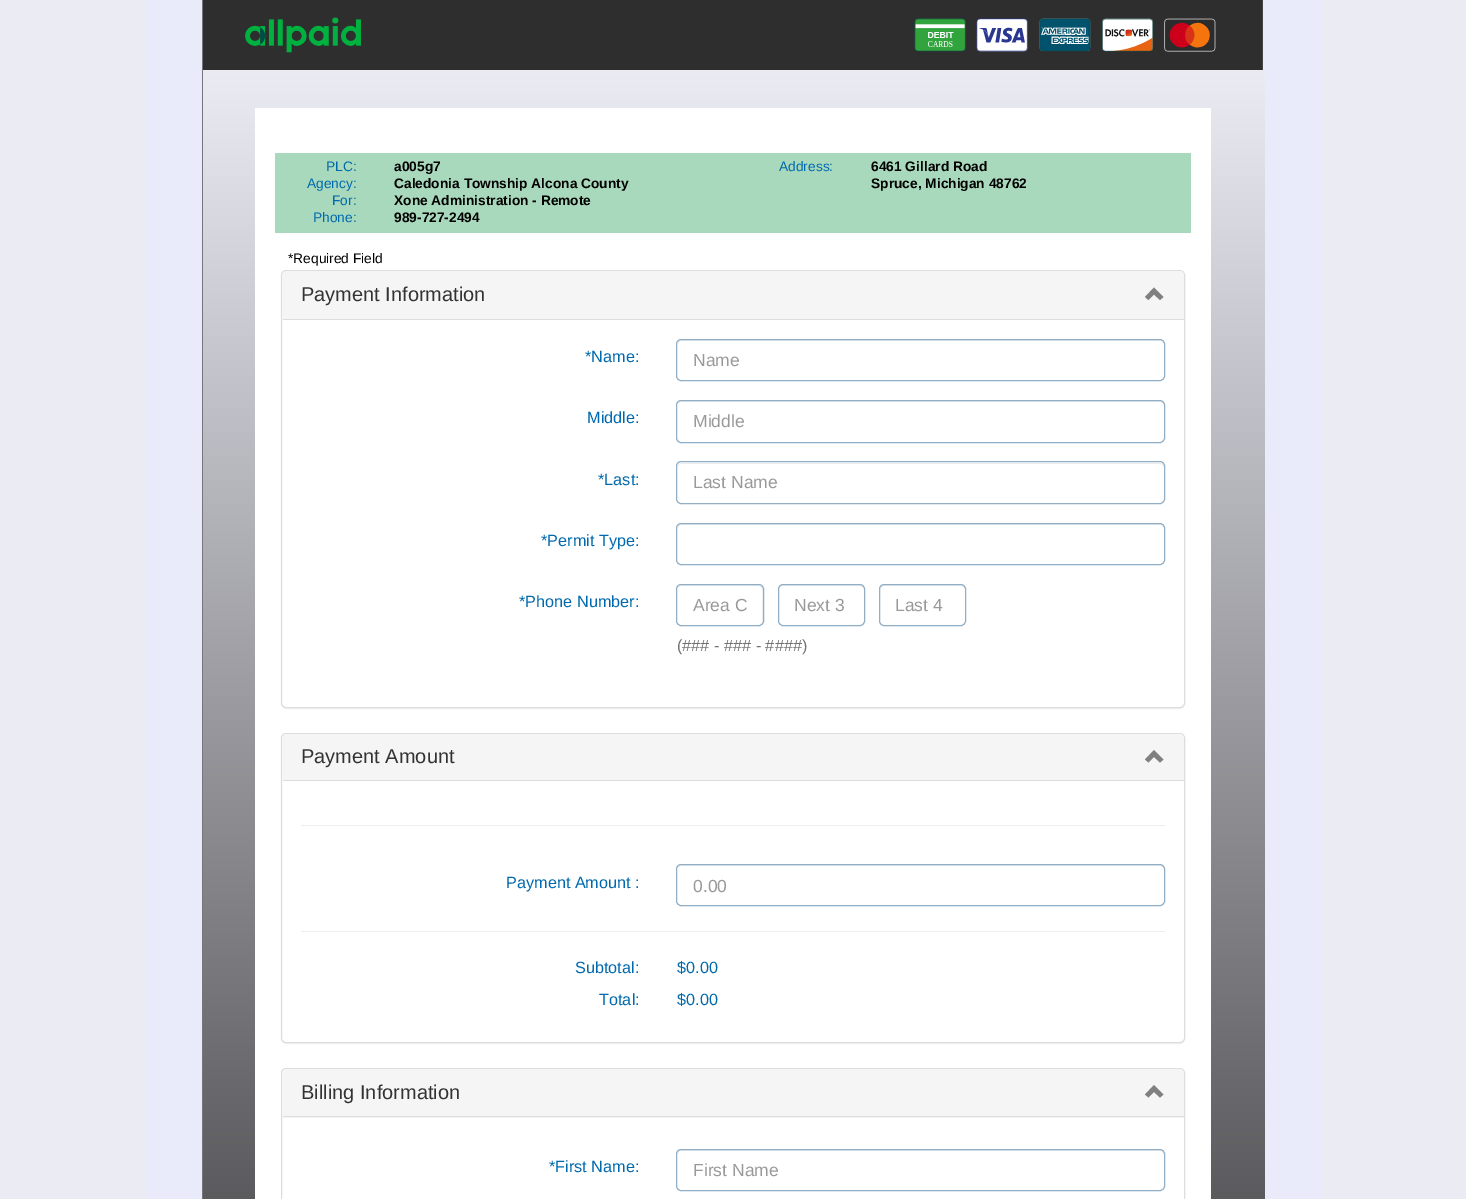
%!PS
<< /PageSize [1466 1199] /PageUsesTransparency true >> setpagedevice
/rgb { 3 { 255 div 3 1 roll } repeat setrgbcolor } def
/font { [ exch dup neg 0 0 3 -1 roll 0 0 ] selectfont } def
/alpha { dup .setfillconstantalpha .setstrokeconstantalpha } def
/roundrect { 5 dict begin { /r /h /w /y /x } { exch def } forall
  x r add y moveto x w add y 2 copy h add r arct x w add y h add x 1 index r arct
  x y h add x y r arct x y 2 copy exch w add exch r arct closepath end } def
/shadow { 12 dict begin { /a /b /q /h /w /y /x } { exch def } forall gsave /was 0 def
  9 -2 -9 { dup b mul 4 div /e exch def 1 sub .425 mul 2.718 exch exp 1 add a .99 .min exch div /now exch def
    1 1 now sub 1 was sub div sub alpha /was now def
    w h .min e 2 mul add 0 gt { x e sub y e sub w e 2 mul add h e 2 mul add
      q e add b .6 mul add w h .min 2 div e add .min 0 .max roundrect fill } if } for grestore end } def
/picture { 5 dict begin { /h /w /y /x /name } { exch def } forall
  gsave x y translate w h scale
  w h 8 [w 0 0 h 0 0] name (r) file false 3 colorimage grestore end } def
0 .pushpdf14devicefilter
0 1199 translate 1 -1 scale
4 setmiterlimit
234 235 243 rgb
0 0 1466 1199 rectfill
(img/1.rgb) 146 0 1175 1199 picture
0.9 alpha
25 25 25 rgb
1262 0 1 70 rectfill
1 alpha
(img/2.rgb) 203 0 1060 70 picture
gsave 203 70 moveto 1265 70 lineto 1265 1199 lineto 203 1199 lineto closepath clip newpath
<< /ShadingType 2 /ColorSpace /DeviceRGB /Coords [734 70 734 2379] /Extend [true true] /Function << /FunctionType 3 /Domain [0 1] /Functions [<< /FunctionType 2 /Domain [0 1] /C0 [0.918 0.922 0.953] /C1 [0 0 0] /N 1 >> << /FunctionType 2 /Domain [0 1] /C0 [0 0 0] /C1 [0 0 0] /N 1 >>] /Bounds [0.8] /Encode [0 1 0 1] >> >> shfill grestore
255 255 255 rgb
255 108 956 1091 rectfill
169 217 188 rgb
275 153 916 80 rectfill
0 0 0 rgb
281 271 904 438 5 0.5 0.05 shadow
255 255 255 rgb
281.5 270.5 903 437 4.5 roundrect gsave fill grestore
221 221 221 rgb
stroke
245 245 245 rgb
287 271 moveto 1180 271 lineto 1182 271 1184 273 1184 275 curveto 1184 320 lineto 283 320 lineto 283 275 lineto 283 273 285 271 287 271 curveto closepath fill
221 221 221 rgb
283 319 901 1 rectfill
128 128 128 rgb
1163.5 297 moveto 1160 300 lineto 1154 294.5 lineto 1148.5 300 lineto 1145 297 lineto 1154 287.5 lineto closepath fill
236 236 236 rgb
681 341 moveto 1160 341 lineto 1162 341 1164 343 1164 345 curveto 1164 342 1163 340 1160 340 curveto 682 340 lineto 679 340 678 342 678 345 curveto 678 343 679 341 681 341 curveto closepath fill
144 174 198 rgb
676.5 339.5 488 41 4.5 roundrect stroke
236 236 236 rgb
681 402 moveto 1160 402 lineto 1162 402 1164 404 1164 406 curveto 1164 403 1163 401 1160 401 curveto 682 401 lineto 679 401 678 403 678 406 curveto 678 404 679 402 681 402 curveto closepath fill
144 174 198 rgb
676.5 400.5 488 42 4.5 roundrect stroke
236 236 236 rgb
681 464 moveto 1160 464 lineto 1162 464 1164 465 1164 468 curveto 1164 465 1163 463 1160 463 curveto 682 463 lineto 679 463 678 465 678 468 curveto 678 465 679 464 681 464 curveto closepath fill
144 174 198 rgb
676.5 461.5 488 42 4.5 roundrect stroke
236 236 236 rgb
681 525 moveto 1160 525 lineto 1162 525 1164 527 1164 529 curveto 1164 526 1163 524 1160 524 curveto 682 524 lineto 679 524 678 526 678 529 curveto 678 527 679 525 681 525 curveto closepath fill
144 174 198 rgb
676.5 523.5 488 41 4.5 roundrect stroke
236 236 236 rgb
681 586 moveto 759 586 lineto 764 586 762 599 762 601 curveto 762 624 lineto 763 623 763 622 763 621 curveto 763 589 lineto 763 587 761 585 759 585 curveto 682 585 lineto 680 585 678 587 678 589 curveto 678 590 lineto 678 588 679 586 681 586 curveto closepath fill
144 174 198 rgb
676.5 584.5 87 41 4.5 roundrect stroke
236 236 236 rgb
782 586 moveto 860 586 lineto 862 586 864 588 864 590 curveto 864 582 852 585 847 585 curveto 796 585 lineto 791 585 779 582 779 590 curveto 779 588 780 586 782 586 curveto closepath fill
144 174 198 rgb
778.5 584.5 86 41 4.5 roundrect stroke
236 236 236 rgb
884 586 moveto 961 586 lineto 963 586 965 588 965 590 curveto 965 582 953 585 948 585 curveto 897 585 lineto 892 585 880 582 880 590 curveto 880 588 882 586 884 586 curveto closepath fill
144 174 198 rgb
879.5 584.5 86 41 4.5 roundrect stroke
0 0 0 rgb
281 734 904 310 5 0.5 0.05 shadow
255 255 255 rgb
281.5 733.5 903 309 4.5 roundrect gsave fill grestore
221 221 221 rgb
stroke
245 245 245 rgb
287 734 moveto 1180 734 lineto 1182 734 1184 736 1184 738 curveto 1184 781 lineto 283 781 lineto 283 738 lineto 283 736 285 734 287 734 curveto closepath fill
221 221 221 rgb
283 780 901 1 rectfill
128 128 128 rgb
1163.5 759.5 moveto 1160 762.5 lineto 1154 757 lineto 1148.5 762.5 lineto 1145 759.5 lineto 1154 750 lineto closepath fill
238 238 238 rgb
301 825 864 1 rectfill
236 236 236 rgb
681 866 moveto 1160 866 lineto 1162 866 1164 868 1164 870 curveto 1164 867 1163 865 1160 865 curveto 682 865 lineto 679 865 678 867 678 870 curveto 678 868 679 866 681 866 curveto closepath fill
144 174 198 rgb
676.5 864.5 488 41 4.5 roundrect stroke
238 238 238 rgb
301 931 864 1 rectfill
221 221 221 rgb
281.5 1068.5 903 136 4.5 roundrect stroke
245 245 245 rgb
287 1069 moveto 1180 1069 lineto 1182 1069 1184 1071 1184 1073 curveto 1184 1118 lineto 283 1118 lineto 283 1073 lineto 283 1071 285 1069 287 1069 curveto closepath fill
221 221 221 rgb
283 1116 901 1 rectfill
128 128 128 rgb
1163.5 1094.5 moveto 1160 1097.5 lineto 1154 1092 lineto 1148.5 1097.5 lineto 1145 1094.5 lineto 1154 1085 lineto closepath fill
236 236 236 rgb
681 1151 moveto 1160 1151 lineto 1162 1151 1164 1153 1164 1155 curveto 1164 1152 1163 1150 1160 1150 curveto 682 1150 lineto 679 1150 678 1152 678 1155 curveto 678 1153 679 1151 681 1151 curveto closepath fill
144 174 198 rgb
676.5 1149.5 488 41 4.5 roundrect stroke
/LiberationSans-Regular 13.75 font
0 105 173 rgb
326 171 moveto (PLC:) show
/LiberationSans-Bold 13.75 font
0 0 0 rgb
394 171 moveto (a005g7) show
/LiberationSans-Regular 13.75 font
0 105 173 rgb
307 188 moveto (Agency:) show
/LiberationSans-Bold 13.75 font
0 0 0 rgb
394 188 moveto (Caledonia Township Alcona County) show
/LiberationSans-Regular 13.75 font
0 105 173 rgb
332 205 moveto (For:) show
/LiberationSans-Bold 13.75 font
0 0 0 rgb
394 205 moveto (Xone Administration - Remote) show
/LiberationSans-Regular 13.75 font
0 105 173 rgb
313 222 moveto (Phone:) show
/LiberationSans-Bold 13.75 font
0 0 0 rgb
394 222 moveto (989-727-2494) show
/LiberationSans-Regular 13.75 font
0 105 173 rgb
779 171 moveto (Address:) show
/LiberationSans-Bold 13.75 font
0 0 0 rgb
871 171 moveto (6461 Gillard Road) show
871 188 moveto (Spruce, Michigan 48762) show
/LiberationSans-Regular 13.75 font
288 263 moveto (*Required Field) show
/LiberationSans-Regular 20 font
51 51 51 rgb
301 301 moveto (Payment Information) show
/LiberationSans-Regular 16.25 font
0 105 173 rgb
585 362 moveto (*Name:) show
/LiberationSans-Regular 17.5 font
153 153 153 rgb
693 366 moveto (Name) show
/LiberationSans-Regular 16.25 font
0 105 173 rgb
587 423 moveto (Middle:) show
/LiberationSans-Regular 17.5 font
153 153 153 rgb
693 427 moveto (Middle) show
/LiberationSans-Regular 16.25 font
0 105 173 rgb
598 485 moveto (*Last:) show
/LiberationSans-Regular 17.5 font
153 153 153 rgb
693 488 moveto (Last Name) show
/LiberationSans-Regular 16.25 font
0 105 173 rgb
541 546 moveto (*Permit Type:) show
519 607 moveto (*Phone Number:) show
/LiberationSans-Regular 17.5 font
153 153 153 rgb
[
  [(Area C) 693 611]
  [(Next 3) 794 611]
  [(Last 4) 895 611]
] { aload pop moveto show } forall
/LiberationSans-Regular 16.25 font
115 115 115 rgb
677 651 moveto (\(### - ### - ####\)) show
/LiberationSans-Regular 20 font
51 51 51 rgb
301 763 moveto (Payment Amount) show
/LiberationSans-Regular 16.25 font
0 105 173 rgb
506 888 moveto (Payment Amount :) show
/LiberationSans-Regular 17.5 font
153 153 153 rgb
693 892 moveto (0.00) show
/LiberationSans-Regular 16.25 font
0 105 173 rgb
[
  [(Subtotal:) 575 973]
  [($0.00) 677 973]
  [(Total:) 599 1005]
  [($0.00) 677 1005]
] { aload pop moveto show } forall
/LiberationSans-Regular 20 font
51 51 51 rgb
301 1099 moveto (Billing Information) show
/LiberationSans-Regular 16.25 font
0 105 173 rgb
549 1172 moveto (*First Name:) show
/LiberationSans-Regular 17.5 font
153 153 153 rgb
693 1176 moveto (First Name) show
.poppdf14devicefilter showpage
